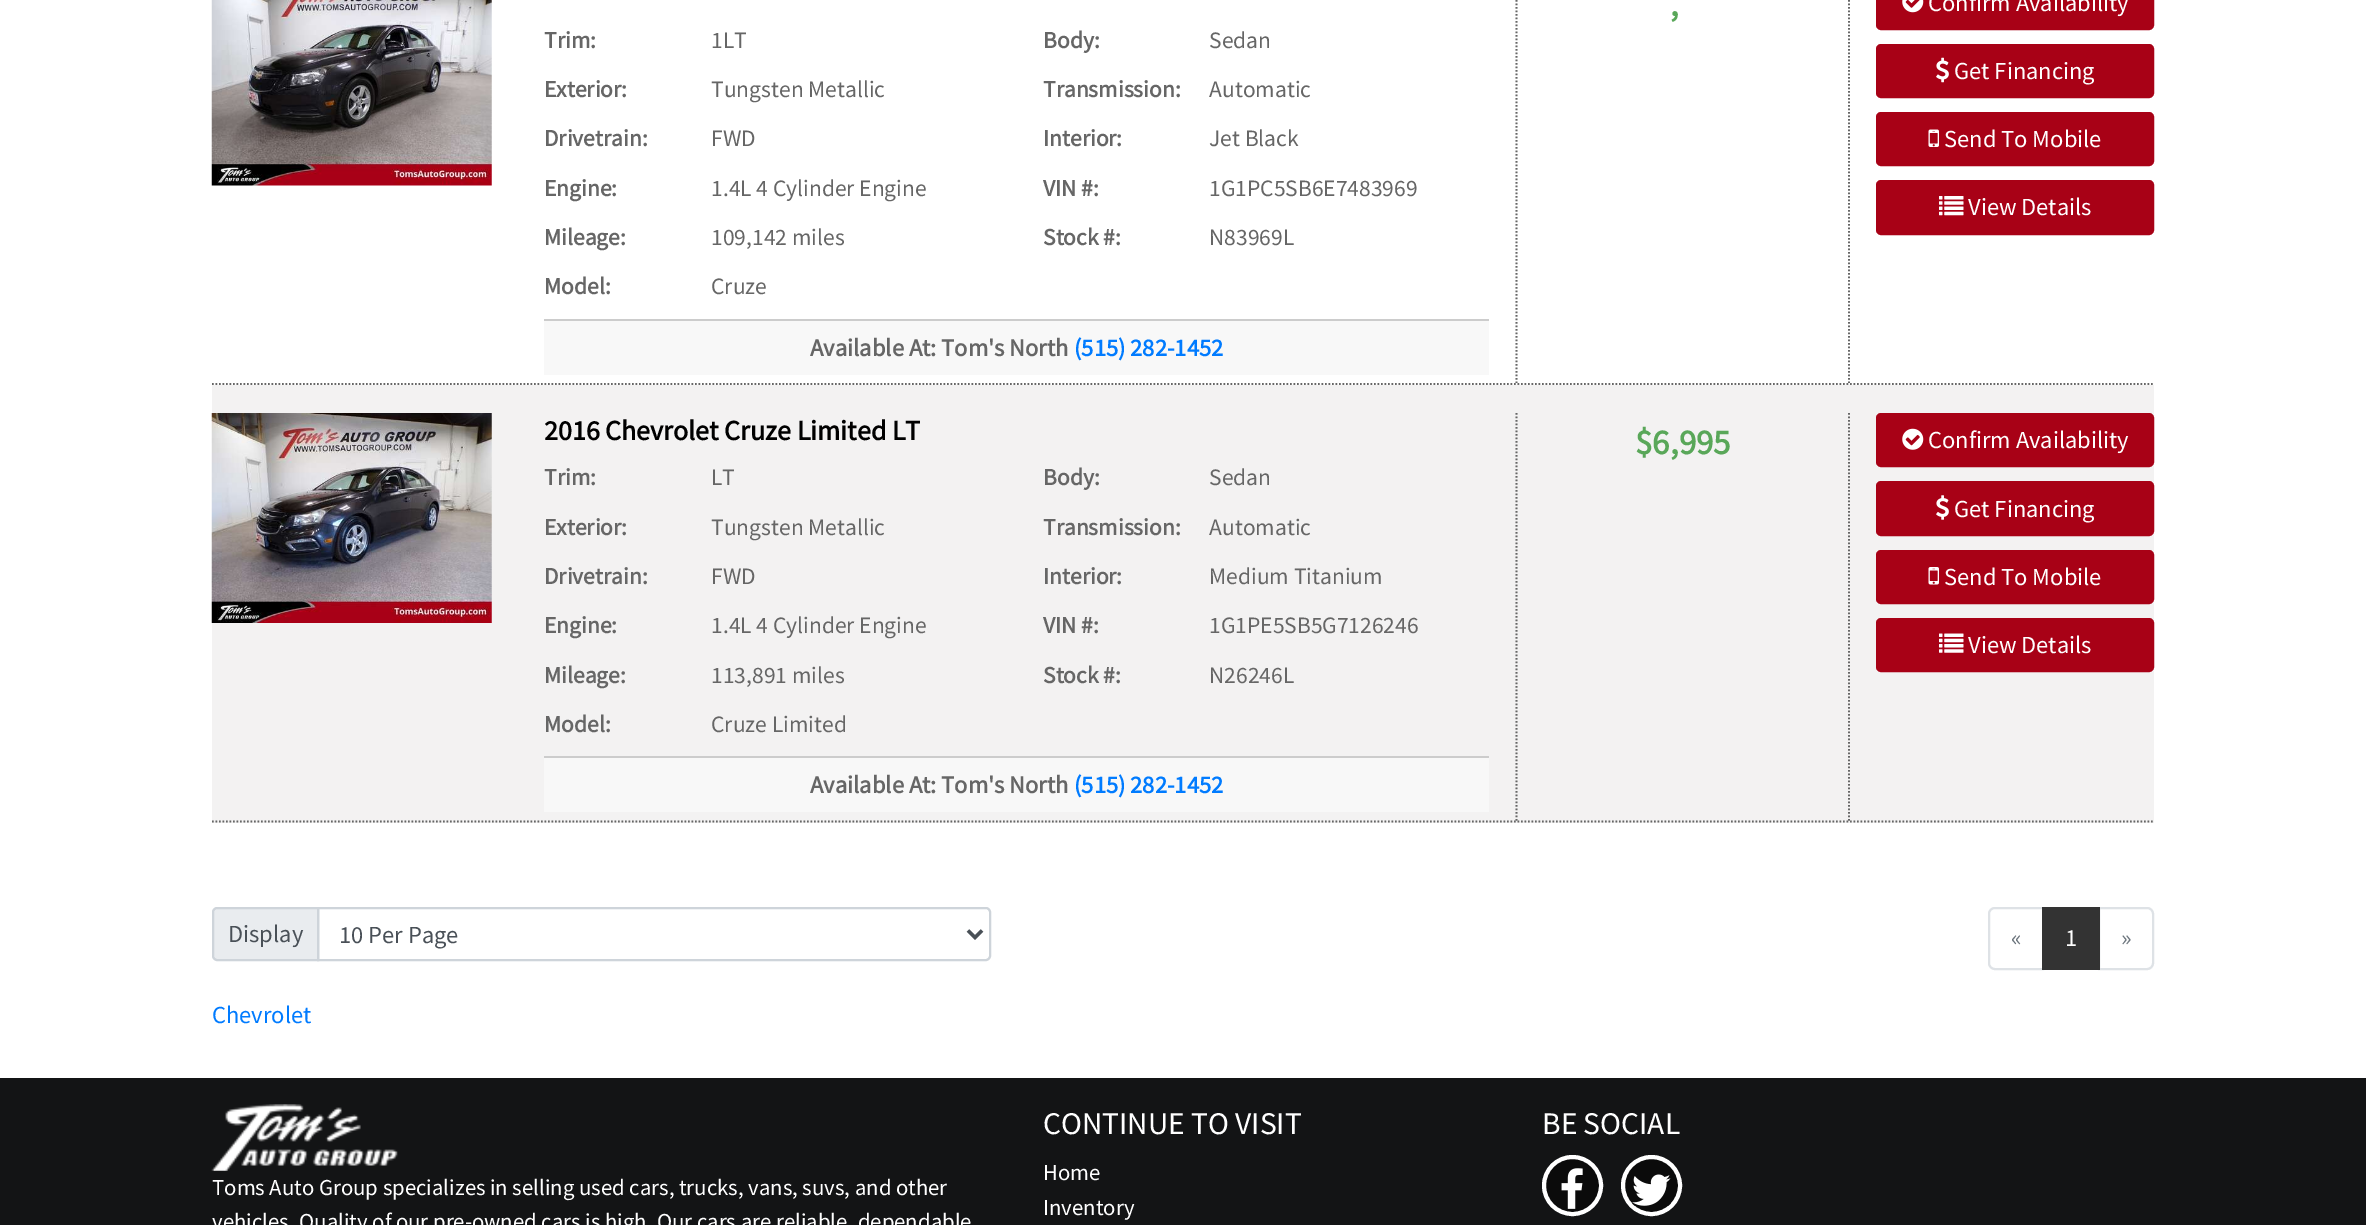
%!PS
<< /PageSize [2366 1225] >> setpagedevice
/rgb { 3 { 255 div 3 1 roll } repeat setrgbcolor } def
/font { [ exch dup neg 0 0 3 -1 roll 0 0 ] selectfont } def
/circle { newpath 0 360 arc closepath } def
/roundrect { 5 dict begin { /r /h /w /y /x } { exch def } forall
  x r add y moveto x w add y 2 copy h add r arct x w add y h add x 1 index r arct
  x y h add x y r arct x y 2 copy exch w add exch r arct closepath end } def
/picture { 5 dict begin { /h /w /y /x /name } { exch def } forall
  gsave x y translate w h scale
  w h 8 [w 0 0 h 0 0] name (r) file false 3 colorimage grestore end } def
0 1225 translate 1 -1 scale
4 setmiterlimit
255 255 255 rgb
0 0 2366 1225 rectfill
102 102 102 rgb
1.8 setlinewidth
[1.75 1.75] 0 setdash
212 384 moveto 2154 384 lineto stroke
(img/1.rgb) 211 0 281 186 picture
248 248 248 rgb
544 321 945 54 rectfill
204 204 204 rgb
544 319 945 2 rectfill
102 102 102 rgb
1849 -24.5 moveto 1849 383 lineto stroke
1516.5 -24.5 moveto 1516.5 383 lineto stroke
168 1 22 rgb
1877 -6 276 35 4 roundrect gsave fill grestore
2 setlinewidth
[] 0 setdash
stroke
(img/2.rgb) 1902 0 22 13 picture
1877 45 276 52 4 roundrect gsave fill grestore
stroke
(img/3.rgb) 1936 57 13 26 picture
1877 113 276 52 4 roundrect gsave fill grestore
stroke
(img/4.rgb) 1928 129 11 18 picture
1877 181 276 53 4 roundrect gsave fill grestore
stroke
(img/5.rgb) 1939 196 25 20 picture
243 242 242 rgb
212 385 1942 438 rectfill
102 102 102 rgb
1.8 setlinewidth
[1.75 1.75] 0 setdash
212 821.5 moveto 2154 821.5 lineto stroke
(img/6.rgb) 211 413 281 210 picture
248 248 248 rgb
544 758 945 54 rectfill
204 204 204 rgb
544 756 945 2 rectfill
102 102 102 rgb
1849 413 moveto 1849 821 lineto stroke
1516.5 413 moveto 1516.5 821 lineto stroke
168 1 22 rgb
1877 414 276 52 4 roundrect gsave fill grestore
2 setlinewidth
[] 0 setdash
stroke
(img/7.rgb) 1902 428 22 22 picture
1877 482 276 53 4 roundrect gsave fill grestore
stroke
(img/8.rgb) 1936 495 13 25 picture
1877 551 276 52 4 roundrect gsave fill grestore
stroke
(img/9.rgb) 1928 567 11 18 picture
1877 619 276 52 4 roundrect gsave fill grestore
stroke
(img/10.rgb) 1939 633 25 20 picture
233 236 239 rgb
217 908 moveto 318 908 lineto 318 960 lineto 217 960 lineto 215 960 213 958 213 956 curveto 213 912 lineto 213 910 215 908 217 908 curveto closepath gsave fill grestore
206 212 218 rgb
stroke
318 908 moveto 986 908 lineto 988 908 990 910 990 912 curveto 990 956 lineto 990 958 988 960 986 960 curveto 318 960 lineto closepath stroke
73 80 87 rgb
3.5 setlinewidth
968 930.5 moveto 975 937.5 lineto 982 930.5 lineto stroke
222 226 230 rgb
2 setlinewidth
1995 908 moveto 2043 908 lineto 2043 969 lineto 1995 969 lineto 1991.5 969 1989 966.5 1989 963 curveto 1989 914 lineto 1989 910.5 1991.5 908 1995 908 curveto closepath stroke
2099 908 moveto 2147 908 lineto 2150.5 908 2153 910.5 2153 914 curveto 2153 963 lineto 2153 966.5 2150.5 969 2147 969 curveto 2099 969 lineto closepath stroke
51 51 51 rgb
2042 907 58 63 rectfill
19 20 21 rgb
0 1078 2366 147 rectfill
11 11 11 rgb
1572.5 1185.5 28.5 circle gsave fill grestore
255 255 255 rgb
4 setlinewidth
stroke
(img/11.rgb) 1561 1168 22 41 picture
11 11 11 rgb
1651.5 1185.5 28.5 circle gsave fill grestore
255 255 255 rgb
stroke
(img/12.rgb) 1632 1174 39 32 picture
(img/13.rgb) 211 1104 187 67 picture
/SourceSansPro-Bold 23.5 font
102 102 102 rgb
544 48 moveto (Trim:) show
/SourceSansPro-Regular 23.5 font
711 48 moveto (1LT) show
/SourceSansPro-Bold 23.5 font
1043 48 moveto (Body:) show
/SourceSansPro-Regular 23.5 font
1209 48 moveto (Sedan) show
/SourceSansPro-Bold 23.5 font
544 97 moveto (Exterior:) show
/SourceSansPro-Regular 23.5 font
711 97 moveto (Tungsten Metallic) show
/SourceSansPro-Bold 23.5 font
1043 97 moveto (Transmission:) show
/SourceSansPro-Regular 23.5 font
1209 97 moveto (Automatic) show
/SourceSansPro-Bold 23.5 font
544 146 moveto (Drivetrain:) show
/SourceSansPro-Regular 23.5 font
711 146 moveto (FWD) show
/SourceSansPro-Bold 23.5 font
1043 146 moveto (Interior:) show
/SourceSansPro-Regular 23.5 font
1209 146 moveto (Jet Black) show
/SourceSansPro-Bold 23.5 font
544 196 moveto (Engine:) show
/SourceSansPro-Regular 23.5 font
711 196 moveto (1.4L 4 Cylinder Engine) show
/SourceSansPro-Bold 23.5 font
1043 196 moveto (VIN #:) show
/SourceSansPro-Regular 23.5 font
1209 196 moveto (1G1PC5SB6E7483969) show
/SourceSansPro-Bold 23.5 font
544 245 moveto (Mileage:) show
/SourceSansPro-Regular 23.5 font
711 245 moveto (109,142 miles) show
/SourceSansPro-Bold 23.5 font
1043 245 moveto (Stock #:) show
/SourceSansPro-Regular 23.5 font
1209 245 moveto (N83969L) show
/SourceSansPro-Bold 23.5 font
544 294 moveto (Model:) show
/SourceSansPro-Regular 23.5 font
711 294 moveto (Cruze) show
/SourceSansPro-Bold 24.5 font
810 356 moveto (Available At: Tom's North) show
0 123 255 rgb
1074 356 moveto (\(515\) 282-1452) show
/SourceSansPro-Bold 35 font
89 167 89 rgb
1670 16 moveto (,) show
/SourceSansPro-Regular 24.5 font
255 255 255 rgb
[
  [(Confirm Availability) 1928 11]
  [(Get Financing) 1954 79]
  [(Send To Mobile) 1944 147]
  [(View Details) 1968 215]
] { aload pop moveto show } forall
/SourceSansPro-Bold 28 font
0 0 0 rgb
544 440 moveto (2016 Chevrolet Cruze Limited LT) show
/SourceSansPro-Bold 23.5 font
102 102 102 rgb
544 485 moveto (Trim:) show
/SourceSansPro-Regular 23.5 font
711 485 moveto (LT) show
/SourceSansPro-Bold 23.5 font
1043 485 moveto (Body:) show
/SourceSansPro-Regular 23.5 font
1209 485 moveto (Sedan) show
/SourceSansPro-Bold 23.5 font
544 535 moveto (Exterior:) show
/SourceSansPro-Regular 23.5 font
711 535 moveto (Tungsten Metallic) show
/SourceSansPro-Bold 23.5 font
1043 535 moveto (Transmission:) show
/SourceSansPro-Regular 23.5 font
1209 535 moveto (Automatic) show
/SourceSansPro-Bold 23.5 font
544 584 moveto (Drivetrain:) show
/SourceSansPro-Regular 23.5 font
711 584 moveto (FWD) show
/SourceSansPro-Bold 23.5 font
1043 584 moveto (Interior:) show
/SourceSansPro-Regular 23.5 font
1209 584 moveto (Medium Titanium) show
/SourceSansPro-Bold 23.5 font
544 633 moveto (Engine:) show
/SourceSansPro-Regular 23.5 font
711 633 moveto (1.4L 4 Cylinder Engine) show
/SourceSansPro-Bold 23.5 font
1043 633 moveto (VIN #:) show
/SourceSansPro-Regular 23.5 font
1209 633 moveto (1G1PE5SB5G7126246) show
/SourceSansPro-Bold 23.5 font
544 683 moveto (Mileage:) show
/SourceSansPro-Regular 23.5 font
711 683 moveto (113,891 miles) show
/SourceSansPro-Bold 23.5 font
1043 683 moveto (Stock #:) show
/SourceSansPro-Regular 23.5 font
1209 683 moveto (N26246L) show
/SourceSansPro-Bold 23.5 font
544 732 moveto (Model:) show
/SourceSansPro-Regular 23.5 font
711 732 moveto (Cruze Limited) show
/SourceSansPro-Bold 24.5 font
810 793 moveto (Available At: Tom's North) show
0 123 255 rgb
1074 793 moveto (\(515\) 282-1452) show
/SourceSansPro-Bold 35 font
89 167 89 rgb
1635 454 moveto ($6,995) show
/SourceSansPro-Regular 24.5 font
255 255 255 rgb
[
  [(Confirm Availability) 1928 448]
  [(Get Financing) 1954 517]
  [(Send To Mobile) 1944 585]
  [(View Details) 1968 653]
] { aload pop moveto show } forall
73 80 87 rgb
228 942 moveto (Display) show
339 943 moveto (10 Per Page) show
108 117 125 rgb
2011 946 moveto («) show
255 255 255 rgb
2065 946 moveto (1) show
108 117 125 rgb
2121 946 moveto (») show
0 123 255 rgb
212 1023 moveto (Chevrolet) show
/SourceSansPro-Regular 31.5 font
255 255 255 rgb
1043 1134 moveto (CONTINUE TO VISIT) show
/SourceSansPro-Regular 22.75 font
1043 1180 moveto (Home) show
1043 1215 moveto (Inventory) show
/SourceSansPro-Regular 31.5 font
1542 1134 moveto (BE SOCIAL) show
/SourceSansPro-Regular 22.75 font
212 1195 moveto (Toms Auto Group specializes in selling used cars, trucks, vans, suvs, and other) show
212 1229 moveto (vehicles. Quality of our pre-owned cars is high. Our cars are reliable, dependable) show
showpage
